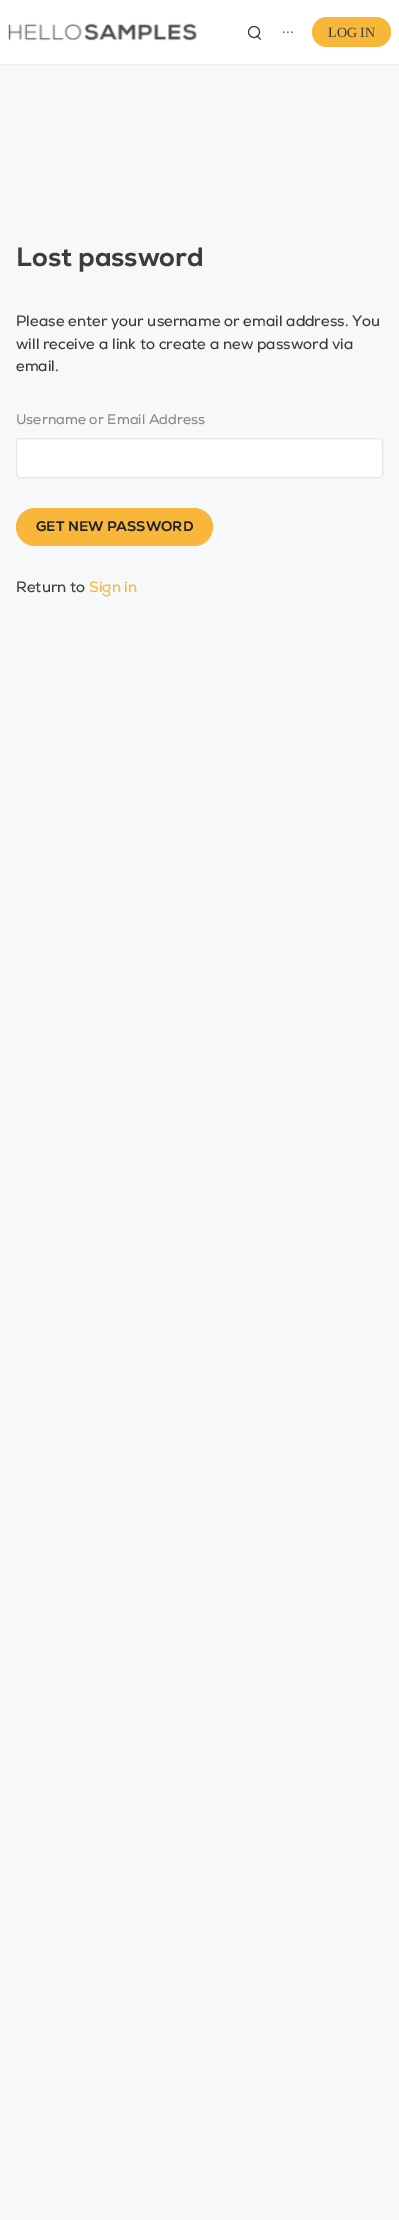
%!PS
<< /PageSize [399 2220] /PageUsesTransparency true >> setpagedevice
/rgb { 3 { 255 div 3 1 roll } repeat setrgbcolor } def
/font { [ exch dup neg 0 0 3 -1 roll 0 0 ] selectfont } def
/alpha { dup .setfillconstantalpha .setstrokeconstantalpha } def
/circle { newpath 0 360 arc closepath } def
/roundrect { 5 dict begin { /r /h /w /y /x } { exch def } forall
  x r add y moveto x w add y 2 copy h add r arct x w add y h add x 1 index r arct
  x y h add x y r arct x y 2 copy exch w add exch r arct closepath end } def
/shadow { 12 dict begin { /a /b /q /h /w /y /x } { exch def } forall gsave /was 0 def
  9 -2 -9 { dup b mul 4 div /e exch def 1 sub .425 mul 2.718 exch exp 1 add a .99 .min exch div /now exch def
    1 1 now sub 1 was sub div sub alpha /was now def
    w h .min e 2 mul add 0 gt { x e sub y e sub w e 2 mul add h e 2 mul add
      q e add b .6 mul add w h .min 2 div e add .min 0 .max roundrect fill } if } for grestore end } def
/picture { 5 dict begin { /h /w /y /x /name } { exch def } forall
  gsave x y translate w h scale
  w h 8 [w 0 0 h 0 0] name (r) file false 3 colorimage grestore end } def
0 .pushpdf14devicefilter
0 2220 translate 1 -1 scale
4 setmiterlimit
247 248 249 rgb
0 0 399 2220 rectfill
130 140 150 rgb
0 1 399 64 0 0.5 0.1 shadow
255 255 255 rgb
0 0 399 64 rectfill
(img/1.rgb) 8 23 189 18 picture
60 60 60 rgb
254 32 5.5 circle stroke
257.5 35.5 moveto 261 39 lineto 261.5 40 260 39.5 259.5 39 curveto 259 38.5 256 36 256.5 35.5 curveto closepath fill
248 183 58 rgb
312 17 79 30 15 roundrect fill
255 255 255 rgb
16 438 367 40 4 roundrect fill
0.25 alpha
150 155 160 rgb
16.5 438.5 366 39 3.5 roundrect stroke
1 alpha
248 183 58 rgb
16 508 197 38 19 roundrect fill
/DejaVuSans-Regular 12 font
60 60 60 rgb
282 36 moveto (⋯) show
/LiberationSerif-Regular 14 font
328 37 moveto (LOG IN) show
/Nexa-ExtraBold 26.25 font
16 266 moveto (Lost password) show
/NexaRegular-Regular 15 font
[
  [(Please enter your username or email address. You) 16 326]
  [(will receive a link to create a new password via) 16 349]
  [(email.) 16 371]
] { aload pop moveto show } forall
/NexaRegular-Regular 14 font
136 136 136 rgb
16 424 moveto (Username or Email Address) show
/Nexa-ExtraBold 14 font
32 35 38 rgb
36 531 moveto (GET NEW PASSWORD) show
/NexaRegular-Regular 15 font
60 60 60 rgb
16 592 moveto (Return to) show
248 183 58 rgb
89 592 moveto (Sign in) show
.poppdf14devicefilter showpage
